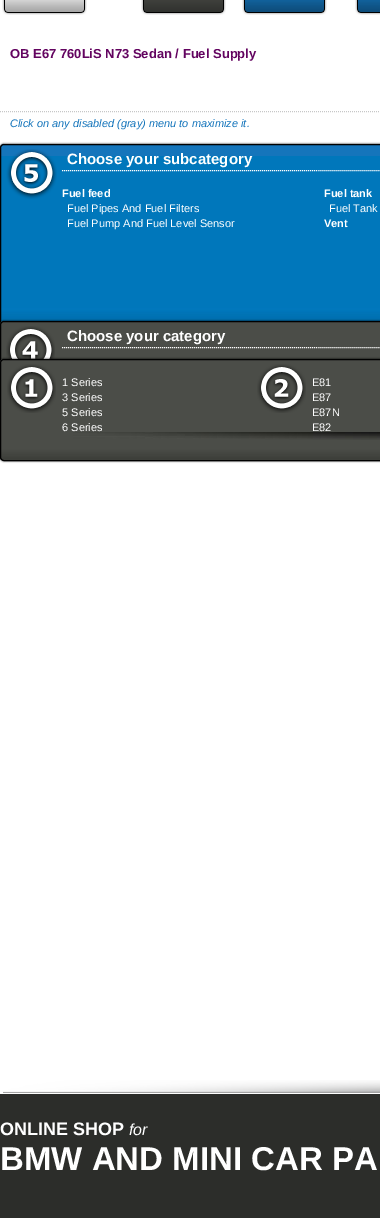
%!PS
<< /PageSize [380 1218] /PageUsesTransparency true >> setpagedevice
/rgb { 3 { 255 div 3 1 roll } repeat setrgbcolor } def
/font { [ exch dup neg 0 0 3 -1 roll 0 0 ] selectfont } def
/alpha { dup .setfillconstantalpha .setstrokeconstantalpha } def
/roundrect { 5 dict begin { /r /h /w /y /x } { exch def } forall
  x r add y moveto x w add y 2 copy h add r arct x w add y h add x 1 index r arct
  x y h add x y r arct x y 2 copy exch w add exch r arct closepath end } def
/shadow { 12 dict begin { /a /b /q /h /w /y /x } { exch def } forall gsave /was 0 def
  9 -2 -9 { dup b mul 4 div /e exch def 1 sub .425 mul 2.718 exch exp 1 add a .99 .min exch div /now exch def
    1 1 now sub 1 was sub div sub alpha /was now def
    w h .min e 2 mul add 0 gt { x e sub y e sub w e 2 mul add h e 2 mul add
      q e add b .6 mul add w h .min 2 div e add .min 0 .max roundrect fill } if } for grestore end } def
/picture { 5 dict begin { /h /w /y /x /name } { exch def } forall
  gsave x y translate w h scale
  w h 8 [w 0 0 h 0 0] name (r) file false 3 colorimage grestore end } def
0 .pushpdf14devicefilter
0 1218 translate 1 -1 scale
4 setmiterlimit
255 255 255 rgb
0 0 380 1218 rectfill
(img/1.rgb) 2 0 85 15 picture
(img/2.rgb) 141 0 85 15 picture
(img/3.rgb) 242 0 85 15 picture
(img/4.rgb) 355 0 25 15 picture
199 199 199 rgb
[1 1] 0 setdash
0 111.5 moveto 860 111.5 lineto stroke
0 0 0 rgb
0 144 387 187 4 1 1 shadow
21 117 187 rgb
0 144 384 187 4 roundrect fill
(img/5.rgb) 1 156 379 166 picture
0 0 0 rgb
[] 0 setdash
0.5 144.5 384 186 3.5 roundrect stroke
(img/6.rgb) 6 149 51 50 picture
255 255 255 rgb
[1 1] 0 setdash
62 170.5 moveto 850 170.5 lineto stroke
0 0 0 rgb
0 321 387 48 4 1 1 shadow
(img/7.rgb) 0 321 380 39 picture
[] 0 setdash
0.5 321.5 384 47 3.5 roundrect stroke
(img/8.rgb) 6 326 49 33 picture
255 255 255 rgb
[1 1] 0 setdash
62 347.5 moveto 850 347.5 lineto stroke
0 0 0 rgb
0 359 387 102 4 1 1 shadow
(img/9.rgb) 0 359 380 101 picture
[] 0 setdash
0.5 359.5 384 101 3.5 roundrect stroke
(img/10.rgb) 7 364 49 49 picture
(img/11.rgb) 257 364 49 49 picture
(img/12.rgb) 73 432 307 8 picture
(img/13.rgb) 3 1080 377 13 picture
44 45 42 rgb
0 1094 380 124 rectfill
/LiberationSans-Bold 13 font
99 4 96 rgb
10 58 moveto (OB E67 760LiS N73 Sedan / Fuel Supply) show
/LiberationSans-Italic 11 font
21 117 187 rgb
10 127 moveto (Click on any disabled \(gray\) menu to maximize it.) show
/LiberationSans-Bold 15 font
255 255 255 rgb
67 164 moveto (Choose your subcategory) show
/LiberationSans-Bold 11 font
62 197 moveto (Fuel feed) show
/LiberationSans-Regular 11 font
67 212 moveto (Fuel Pipes And Fuel Filters) show
67 227 moveto (Fuel Pump And Fuel Level Sensor) show
/LiberationSans-Bold 11 font
324 197 moveto (Fuel tank) show
/LiberationSans-Regular 11 font
329 212 moveto (Fuel Tank) show
/LiberationSans-Bold 11 font
324 227 moveto (Vent) show
/LiberationSans-Bold 15 font
67 341 moveto (Choose your category) show
/LiberationSans-Regular 11 font
[
  [(1 Series) 62 386]
  [(3 Series) 62 401]
  [(5 Series) 62 416]
  [(6 Series) 62 431]
  [(E81) 312 386]
  [(E87) 312 401]
  [(E87N) 312 416]
  [(E82) 312 431]
] { aload pop moveto show } forall
/LiberationSans-Bold 18 font
0 1135 moveto (ONLINE SHOP) show
/LiberationSans-Italic 16 font
129 1135 moveto (for) show
/LiberationSans-Bold 33 font
0 1170 moveto (BMW AND MINI CAR PA) show
.poppdf14devicefilter showpage
